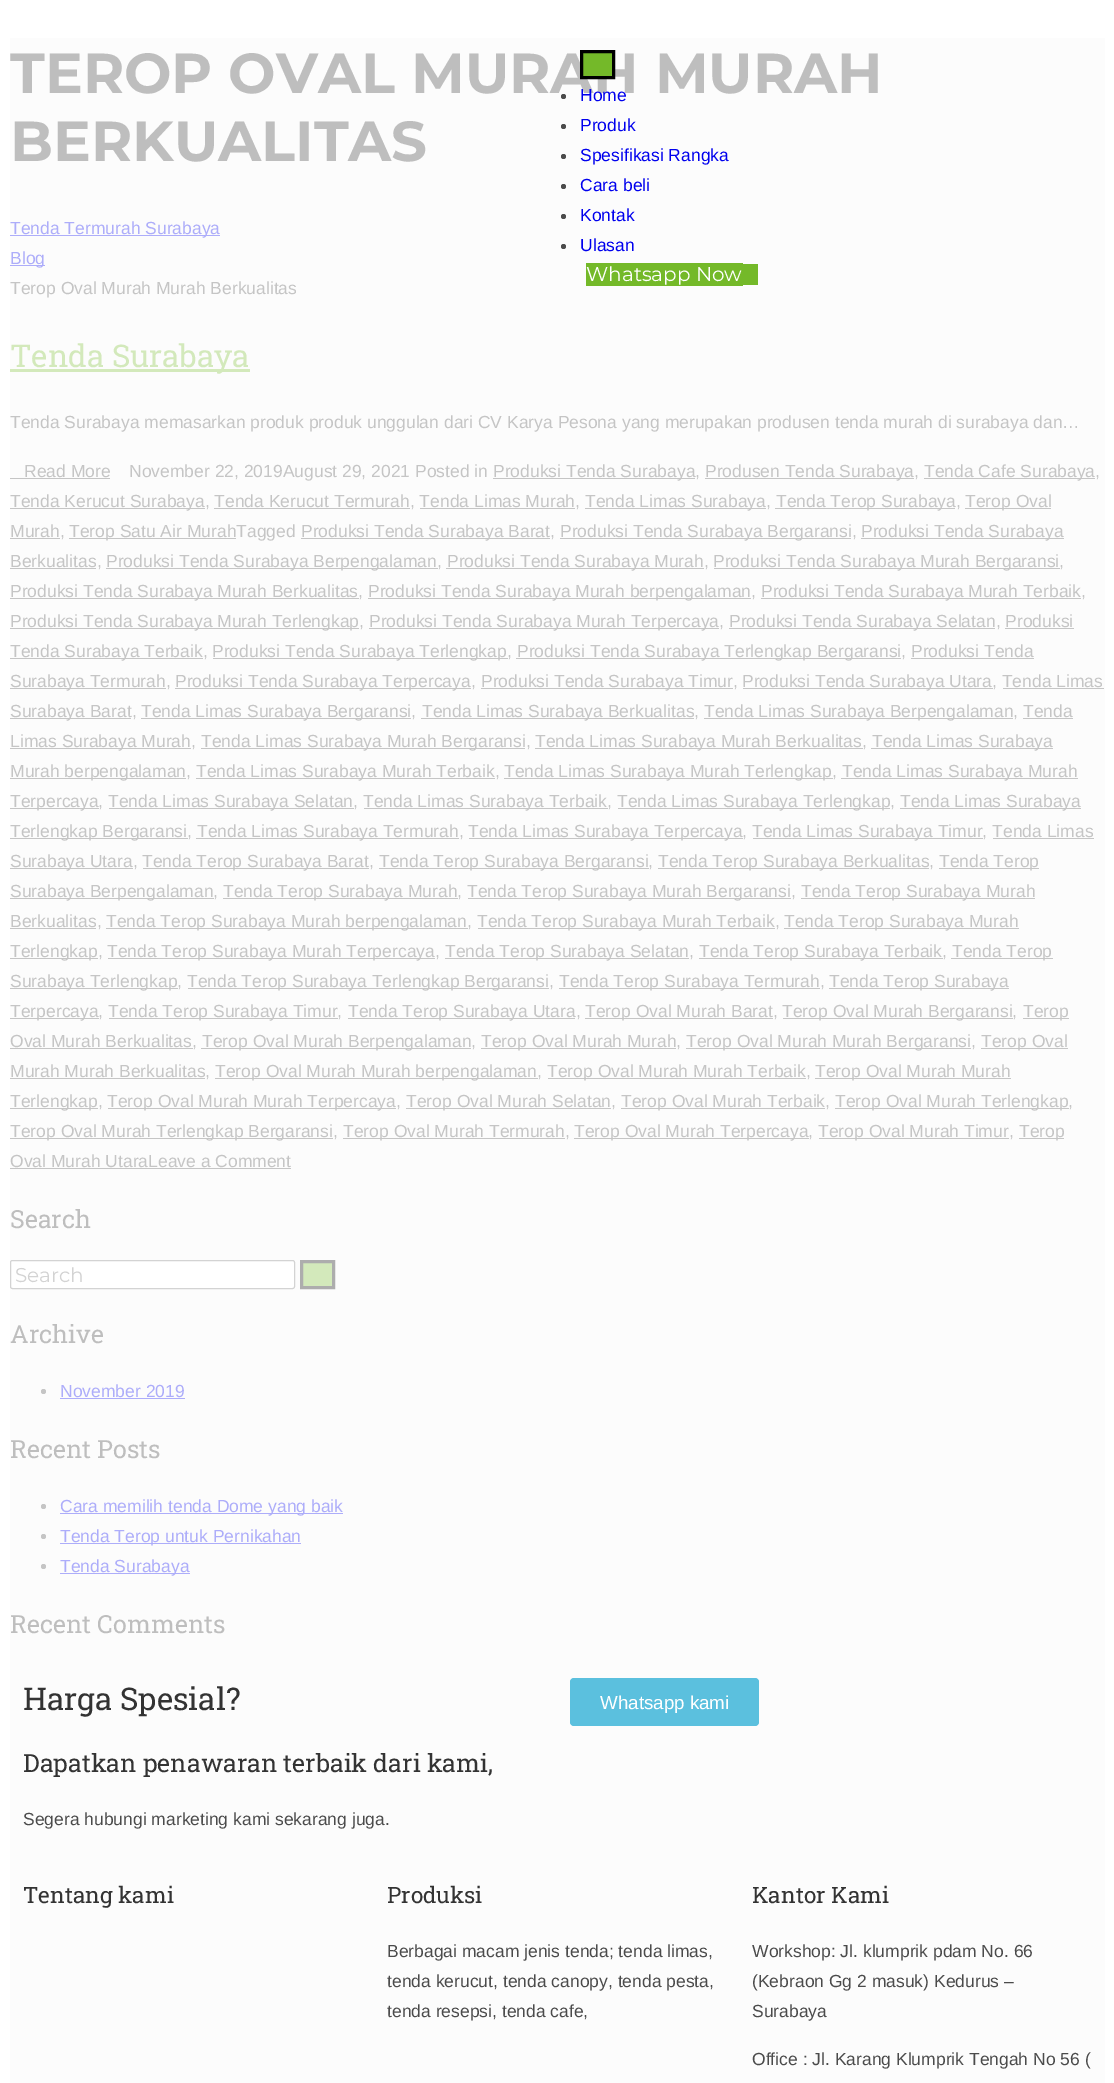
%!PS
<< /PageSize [1114 2083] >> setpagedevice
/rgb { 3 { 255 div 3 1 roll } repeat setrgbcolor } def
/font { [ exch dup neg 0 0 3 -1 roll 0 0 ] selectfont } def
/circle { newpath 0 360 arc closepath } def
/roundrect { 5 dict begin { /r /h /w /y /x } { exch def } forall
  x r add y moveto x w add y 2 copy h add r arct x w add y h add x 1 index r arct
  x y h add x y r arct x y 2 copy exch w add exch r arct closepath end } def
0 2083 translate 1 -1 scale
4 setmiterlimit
255 255 255 rgb
0 0 1114 2083 rectfill
[
  [10 38 1095 2045 252 252 252]
  [10 235 210 1 173 173 250]
  [10 265 35 1 173 173 250]
] { aload pop rgb rectfill } forall
75 75 75 rgb
563.5 96.5 2.5 circle fill
563.5 126.5 2.5 circle fill
563.5 156.5 2.5 circle fill
563.5 186.5 2.5 circle fill
563.5 216.5 2.5 circle fill
563.5 246.5 2.5 circle fill
[
  [586 263 157 23 116 185 41]
  [743 264 15 21 116 185 41]
  [10 369 240 3 211 233 187]
  [10 478 100 1 197 197 197]
  [493 478 202 1 197 197 197]
  [705 478 209 1 197 197 197]
  [924 478 171 1 197 197 197]
  [10 508 195 1 197 197 197]
  [214 508 196 1 197 197 197]
  [420 508 155 1 197 197 197]
  [585 508 181 1 197 197 197]
  [775 508 180 1 197 197 197]
  [965 508 86 1 197 197 197]
  [10 538 50 1 197 197 197]
  [69 538 167 1 197 197 197]
  [301 538 249 1 197 197 197]
  [560 538 291 1 197 197 197]
  [861 538 203 1 197 197 197]
  [10 568 86 1 197 197 197]
  [106 568 332 1 197 197 197]
  [446 568 258 1 197 197 197]
  [714 568 346 1 197 197 197]
  [10 598 349 1 197 197 197]
  [368 598 383 1 197 197 197]
  [761 598 320 1 197 197 197]
  [10 628 349 1 197 197 197]
  [369 628 350 1 197 197 197]
  [729 628 266 1 197 197 197]
  [1005 628 69 1 197 197 197]
  [10 658 193 1 197 197 197]
  [213 658 295 1 197 197 197]
  [516 658 385 1 197 197 197]
  [911 658 123 1 197 197 197]
  [10 688 156 1 197 197 197]
  [175 688 296 1 197 197 197]
  [481 688 252 1 197 197 197]
  [743 688 250 1 197 197 197]
  [1003 688 101 1 197 197 197]
  [10 718 121 1 197 197 197]
  [141 718 270 1 197 197 197]
  [421 718 273 1 197 197 197]
  [704 718 309 1 197 197 197]
  [1023 718 50 1 197 197 197]
  [10 748 181 1 197 197 197]
  [201 748 324 1 197 197 197]
  [535 748 328 1 197 197 197]
  [871 748 182 1 197 197 197]
  [10 778 176 1 197 197 197]
  [196 778 299 1 197 197 197]
  [504 778 329 1 197 197 197]
  [841 778 237 1 197 197 197]
  [10 808 89 1 197 197 197]
  [109 808 245 1 197 197 197]
  [364 808 244 1 197 197 197]
  [618 808 272 1 197 197 197]
  [900 808 181 1 197 197 197]
  [10 838 178 1 197 197 197]
  [196 838 263 1 197 197 197]
  [469 838 274 1 197 197 197]
  [753 838 230 1 197 197 197]
  [993 838 101 1 197 197 197]
  [10 868 123 1 197 197 197]
  [143 868 226 1 197 197 197]
  [379 868 270 1 197 197 197]
  [658 868 271 1 197 197 197]
  [939 868 100 1 197 197 197]
  [10 898 204 1 197 197 197]
  [223 898 235 1 197 197 197]
  [468 898 323 1 197 197 197]
  [801 898 234 1 197 197 197]
  [10 928 86 1 197 197 197]
  [106 928 362 1 197 197 197]
  [478 928 297 1 197 197 197]
  [784 928 235 1 197 197 197]
  [10 958 88 1 197 197 197]
  [108 958 327 1 197 197 197]
  [445 958 244 1 197 197 197]
  [699 958 244 1 197 197 197]
  [951 958 102 1 197 197 197]
  [10 988 168 1 197 197 197]
  [188 988 361 1 197 197 197]
  [559 988 261 1 197 197 197]
  [829 988 180 1 197 197 197]
  [10 1018 89 1 197 197 197]
  [109 1018 229 1 197 197 197]
  [348 1018 227 1 197 197 197]
  [585 1018 188 1 197 197 197]
  [783 1018 230 1 197 197 197]
  [1023 1018 46 1 197 197 197]
  [10 1048 183 1 197 197 197]
  [201 1048 270 1 197 197 197]
  [481 1048 195 1 197 197 197]
  [686 1048 285 1 197 197 197]
  [981 1048 87 1 197 197 197]
  [10 1078 195 1 197 197 197]
  [215 1078 323 1 197 197 197]
  [548 1078 258 1 197 197 197]
  [815 1078 196 1 197 197 197]
  [10 1108 88 1 197 197 197]
  [108 1108 288 1 197 197 197]
  [406 1108 205 1 197 197 197]
  [621 1108 204 1 197 197 197]
  [835 1108 234 1 197 197 197]
  [10 1138 323 1 197 197 197]
  [343 1138 222 1 197 197 197]
  [574 1138 235 1 197 197 197]
  [819 1138 190 1 197 197 197]
  [1019 1138 45 1 197 197 197]
  [10 1168 281 1 197 197 197]
] { aload pop rgb rectfill } forall
255 255 255 rgb
10.5 1260.5 284 28 2 roundrect gsave fill grestore
211 211 211 rgb
stroke
211 233 187 rgb
301.5 1261.5 moveto 333.5 1261.5 lineto 333.5 1287.5 lineto 301.5 1287.5 lineto closepath gsave fill grestore
173 173 173 rgb
3 setlinewidth
stroke
197 197 197 rgb
43.5 1391.5 2.5 circle fill
173 173 250 rgb
60 1398 125 1 rectfill
197 197 197 rgb
43.5 1506.5 2.5 circle fill
173 173 250 rgb
60 1513 283 1 rectfill
197 197 197 rgb
43.5 1536.5 2.5 circle fill
173 173 250 rgb
60 1543 241 1 rectfill
197 197 197 rgb
43.5 1566.5 2.5 circle fill
173 173 250 rgb
60 1573 130 1 rectfill
91 192 222 rgb
570 1678 189 48 4 roundrect fill
/Montserrat-Bold 56.25 font
190 190 190 rgb
10 93 moveto (TEROP OVAL MURAH MURAH) show
10 161 moveto (BERKUALITAS) show
/LiberationSans-Regular 17.5 font
173 173 250 rgb
10 234 moveto (Tenda Termurah Surabaya) show
10 264 moveto (Blog) show
197 197 197 rgb
10 294 moveto (Terop Oval Murah Murah Berkualitas) show
116 185 41 rgb
581.5 51.5 moveto 613.5 51.5 lineto 613.5 77.5 lineto 581.5 77.5 lineto closepath gsave fill grestore
0 0 0 rgb
stroke
0 0 238 rgb
[
  [(Home) 580 101]
  [(Produk) 580 131]
  [(Spesifikasi Rangka) 580 161]
  [(Cara beli) 580 191]
  [(Kontak) 580 221]
  [(Ulasan) 580 251]
] { aload pop moveto show } forall
/Montserrat-Regular 20 font
255 255 255 rgb
586 281 moveto (Whatsapp Now) show
/RobotoSlab-Regular 31.25 font
211 233 187 rgb
10 367 moveto (Tenda Surabaya) show
/LiberationSans-Regular 17.5 font
197 197 197 rgb
[
  [(Tenda Surabaya memasarkan produk produk unggulan dari CV Karya Pesona yang merupakan produsen tenda murah di surabaya dan…) 10 428]
  [(Read More) 24 477]
  [(November 22, 2019August 29, 2021 Posted in) 129 477]
  [(Produksi Tenda Surabaya,) 493 477]
  [(Produsen Tenda Surabaya,) 705 477]
  [(Tenda Cafe Surabaya,) 924 477]
  [(Tenda Kerucut Surabaya, Tenda Kerucut Termurah, Tenda Limas Murah,) 10 507]
  [(Tenda Limas Surabaya,) 585 507]
  [(Tenda Terop Surabaya,) 776 507]
  [(Terop Oval) 965 507]
  [(Murah,) 10 537]
  [(Terop Satu Air MurahTagged) 69 537]
  [(Produksi Tenda Surabaya Barat,) 301 537]
  [(Produksi Tenda Surabaya Bergaransi,) 560 537]
  [(Produksi Tenda Surabaya) 861 537]
  [(Berkualitas,) 10 567]
  [(Produksi Tenda Surabaya Berpengalaman,) 106 567]
  [(Produksi Tenda Surabaya Murah,) 447 567]
  [(Produksi Tenda Surabaya Murah Bergaransi,) 713 567]
  [(Produksi Tenda Surabaya Murah Berkualitas,) 10 597]
  [(Produksi Tenda Surabaya Murah berpengalaman,) 368 597]
  [(Produksi Tenda Surabaya Murah Terbaik,) 761 597]
  [(Produksi Tenda Surabaya Murah Terlengkap,) 10 627]
  [(Produksi Tenda Surabaya Murah Terpercaya,) 369 627]
  [(Produksi Tenda Surabaya Selatan, Produksi) 729 627]
  [(Tenda Surabaya Terbaik,) 10 657]
  [(Produksi Tenda Surabaya Terlengkap,) 212 657]
  [(Produksi Tenda Surabaya Terlengkap Bergaransi, Produksi Tenda) 517 657]
  [(Surabaya Termurah,) 10 687]
  [(Produksi Tenda Surabaya Terpercaya,) 175 687]
  [(Produksi Tenda Surabaya Timur,) 481 687]
  [(Produksi Tenda Surabaya Utara, Tenda Limas) 742 687]
  [(Surabaya Barat,) 10 717]
  [(Tenda Limas Surabaya Bergaransi,) 141 717]
  [(Tenda Limas Surabaya Berkualitas,) 422 717]
  [(Tenda Limas Surabaya Berpengalaman, Tenda) 704 717]
  [(Limas Surabaya Murah,) 10 747]
  [(Tenda Limas Surabaya Murah Bergaransi,) 201 747]
  [(Tenda Limas Surabaya Murah Berkualitas,) 535 747]
  [(Tenda Limas Surabaya) 872 747]
  [(Murah berpengalaman,) 10 777]
  [(Tenda Limas Surabaya Murah Terbaik,) 196 777]
  [(Tenda Limas Surabaya Murah Terlengkap,) 504 777]
  [(Tenda Limas Surabaya Murah) 842 777]
  [(Terpercaya,) 10 807]
  [(Tenda Limas Surabaya Selatan,) 108 807]
  [(Tenda Limas Surabaya Terbaik,) 363 807]
  [(Tenda Limas Surabaya Terlengkap,) 617 807]
  [(Tenda Limas Surabaya) 900 807]
  [(Terlengkap Bergaransi,) 10 837]
  [(Tenda Limas Surabaya Termurah,) 197 837]
  [(Tenda Limas Surabaya Terpercaya,) 468 837]
  [(Tenda Limas Surabaya Timur, Tenda Limas) 752 837]
  [(Surabaya Utara,) 10 867]
  [(Tenda Terop Surabaya Barat,) 142 867]
  [(Tenda Terop Surabaya Bergaransi,) 379 867]
  [(Tenda Terop Surabaya Berkualitas,) 658 867]
  [(Tenda Terop) 939 867]
  [(Surabaya Berpengalaman,) 10 897]
  [(Tenda Terop Surabaya Murah,) 223 897]
  [(Tenda Terop Surabaya Murah Bergaransi,) 467 897]
  [(Tenda Terop Surabaya Murah) 801 897]
  [(Berkualitas,) 10 927]
  [(Tenda Terop Surabaya Murah berpengalaman,) 106 927]
  [(Tenda Terop Surabaya Murah Terbaik,) 477 927]
  [(Tenda Terop Surabaya Murah) 784 927]
  [(Terlengkap,) 10 957]
  [(Tenda Terop Surabaya Murah Terpercaya,) 107 957]
  [(Tenda Terop Surabaya Selatan,) 445 957]
  [(Tenda Terop Surabaya Terbaik,) 699 957]
  [(Tenda Terop) 952 957]
  [(Surabaya Terlengkap,) 10 987]
  [(Tenda Terop Surabaya Terlengkap Bergaransi,) 187 987]
  [(Tenda Terop Surabaya Termurah,) 559 987]
  [(Tenda Terop Surabaya) 829 987]
  [(Terpercaya,) 10 1017]
  [(Tenda Terop Surabaya Timur,) 108 1017]
  [(Tenda Terop Surabaya Utara,) 348 1017]
  [(Terop Oval Murah Barat,) 585 1017]
  [(Terop Oval Murah Bergaransi,) 782 1017]
  [(Terop) 1023 1017]
  [(Oval Murah Berkualitas,) 10 1047]
  [(Terop Oval Murah Berpengalaman,) 202 1047]
  [(Terop Oval Murah Murah,) 481 1047]
  [(Terop Oval Murah Murah Bergaransi,) 686 1047]
  [(Terop Oval) 981 1047]
  [(Murah Murah Berkualitas,) 10 1077]
  [(Terop Oval Murah Murah berpengalaman,) 215 1077]
  [(Terop Oval Murah Murah Terbaik,) 547 1077]
  [(Terop Oval Murah Murah) 815 1077]
  [(Terlengkap,) 10 1107]
  [(Terop Oval Murah Murah Terpercaya,) 107 1107]
  [(Terop Oval Murah Selatan,) 406 1107]
  [(Terop Oval Murah Terbaik,) 621 1107]
  [(Terop Oval Murah Terlengkap,) 835 1107]
  [(Terop Oval Murah Terlengkap Bergaransi,) 10 1137]
  [(Terop Oval Murah Termurah,) 343 1137]
  [(Terop Oval Murah Terpercaya,) 574 1137]
  [(Terop Oval Murah Timur,) 818 1137]
  [(Terop) 1019 1137]
  [(Oval Murah UtaraLeave a Comment) 10 1167]
] { aload pop moveto show } forall
/RobotoSlab-Regular 25 font
190 190 190 rgb
10 1228 moveto (Search) show
/Montserrat-Regular 20 font
211 211 211 rgb
15 1282 moveto (Search) show
/RobotoSlab-Regular 25 font
190 190 190 rgb
10 1343 moveto (Archive) show
/LiberationSans-Regular 17.5 font
173 173 250 rgb
60 1397 moveto (November 2019) show
/RobotoSlab-Regular 25 font
190 190 190 rgb
10 1458 moveto (Recent Posts) show
/LiberationSans-Regular 17.5 font
173 173 250 rgb
[
  [(Cara memilih tenda Dome yang baik) 60 1512]
  [(Tenda Terop untuk Pernikahan) 60 1542]
  [(Tenda Surabaya) 60 1572]
] { aload pop moveto show } forall
/RobotoSlab-Regular 25 font
190 190 190 rgb
10 1633 moveto (Recent Comments) show
/RobotoSlab-Regular 31.25 font
51 51 51 rgb
23 1710 moveto (Harga Spesial?) show
/RobotoSlab-Regular 25 font
23 1772 moveto (Dapatkan penawaran terbaik dari kami,) show
/LiberationSans-Regular 17.5 font
75 75 75 rgb
23 1825 moveto (Segera hubungi marketing kami sekarang juga.) show
/LiberationSans-Regular 18.75 font
255 255 255 rgb
600 1709 moveto (Whatsapp kami) show
/RobotoSlab-Regular 22.5 font
51 51 51 rgb
23 1903 moveto (Tentang kami) show
387 1903 moveto (Produksi) show
/LiberationSans-Regular 17.5 font
75 75 75 rgb
[
  [(Berbagai macam jenis tenda; tenda limas,) 387 1957]
  [(tenda kerucut, tenda canopy, tenda pesta,) 387 1987]
  [(tenda resepsi, tenda cafe,) 387 2017]
] { aload pop moveto show } forall
/RobotoSlab-Regular 22.5 font
51 51 51 rgb
752 1903 moveto (Kantor Kami) show
/LiberationSans-Regular 17.5 font
75 75 75 rgb
[
  [(Workshop: Jl. klumprik pdam No. 66) 752 1957]
  [(\(Kebraon Gg 2 masuk\) Kedurus –) 752 1987]
  [(Surabaya) 752 2017]
  [(Office : Jl. Karang Klumprik Tengah No 56 \() 752 2065]
] { aload pop moveto show } forall
showpage
